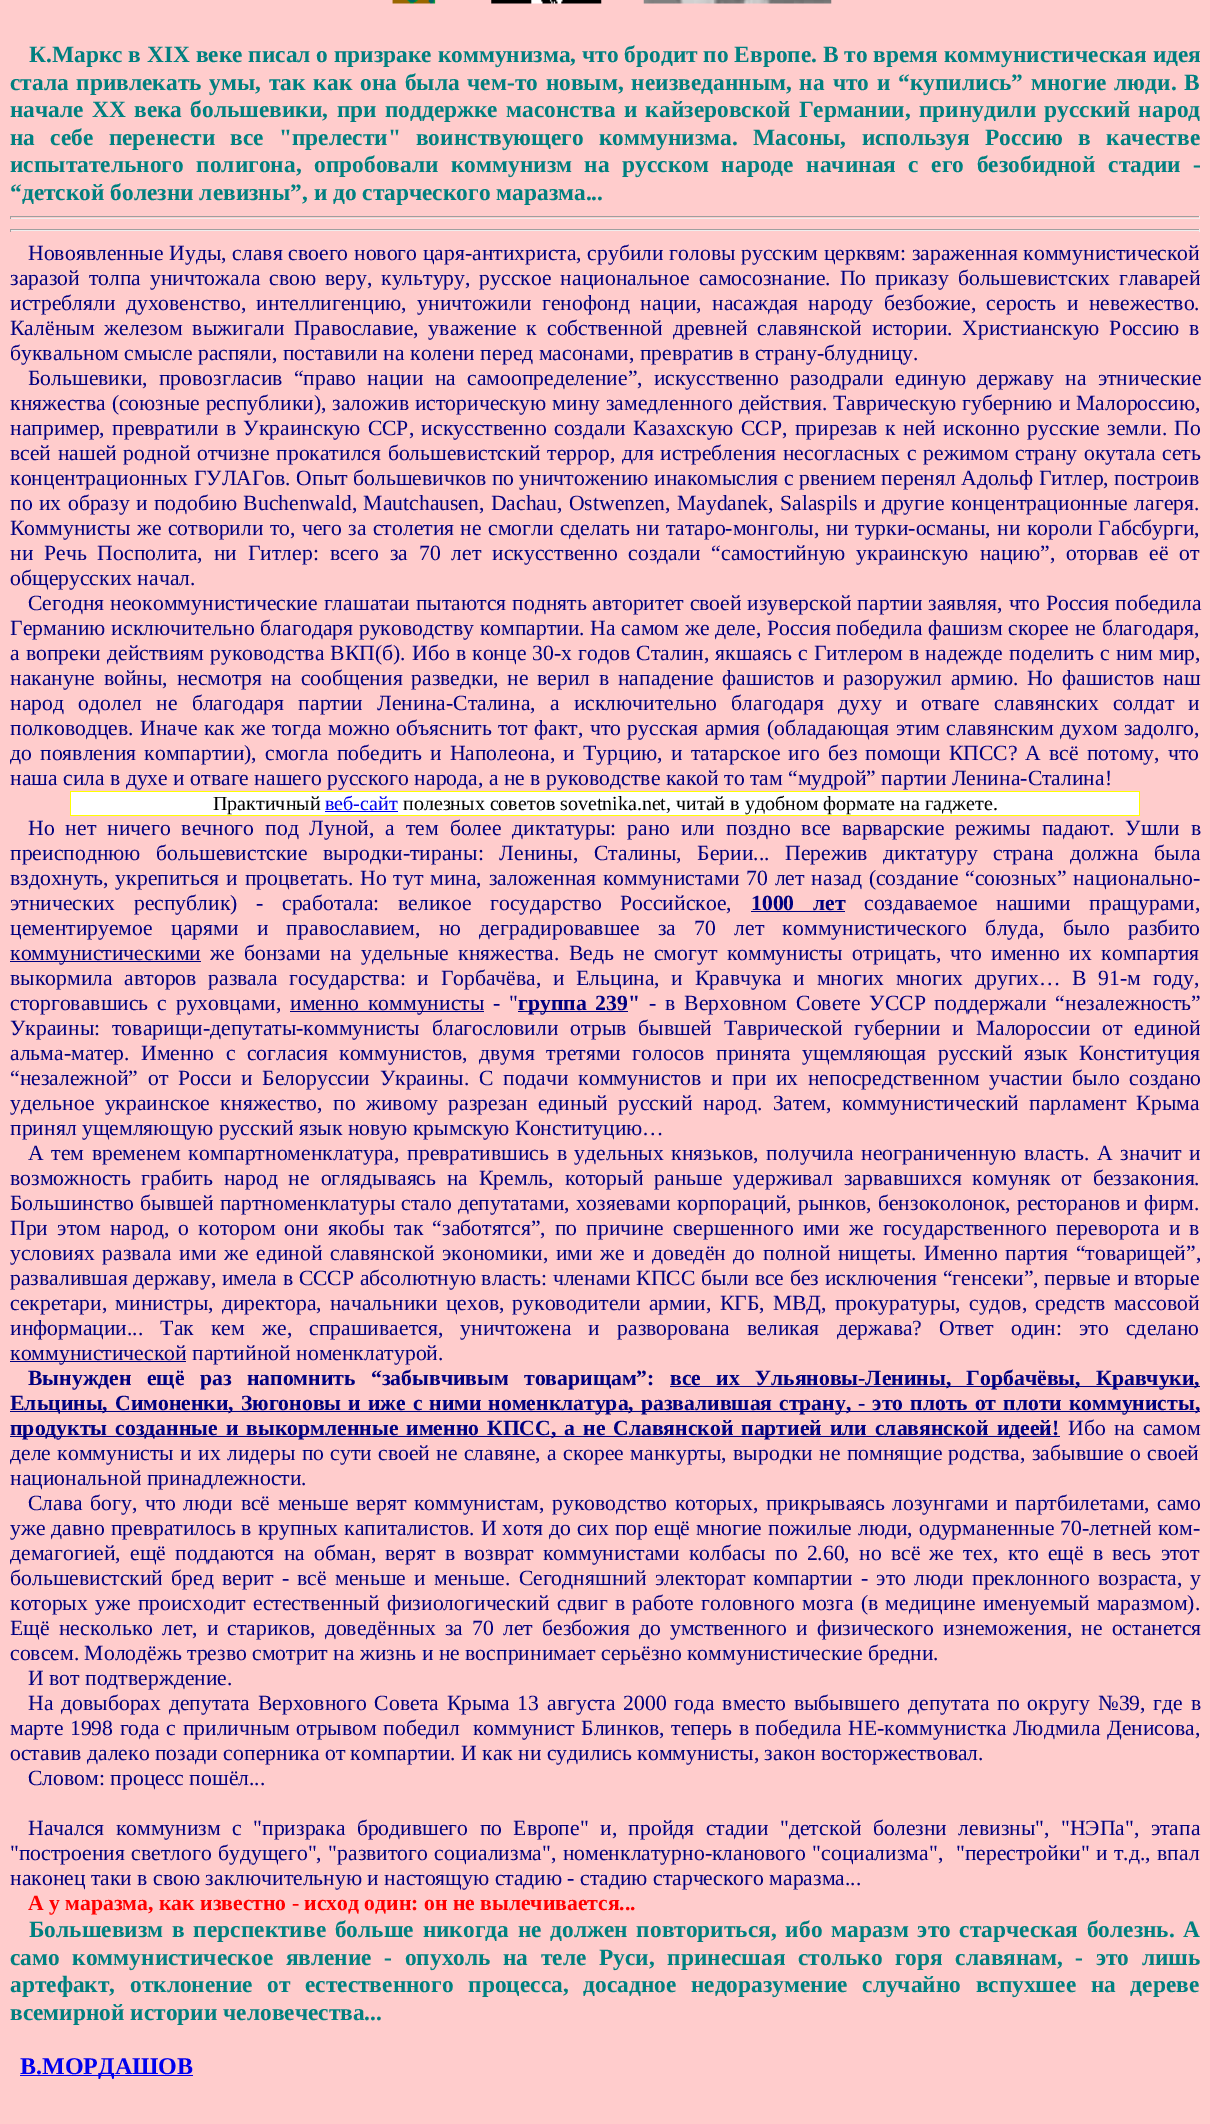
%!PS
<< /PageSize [1210 2124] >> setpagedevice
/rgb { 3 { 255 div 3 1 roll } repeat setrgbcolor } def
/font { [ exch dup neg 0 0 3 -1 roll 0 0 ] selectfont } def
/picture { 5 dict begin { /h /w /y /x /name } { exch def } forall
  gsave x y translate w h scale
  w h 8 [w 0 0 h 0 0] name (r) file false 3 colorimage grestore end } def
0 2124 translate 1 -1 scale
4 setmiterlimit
255 204 204 rgb
0 0 1210 2124 rectfill
(img/1.rgb) 392 0 44 4 picture
(img/2.rgb) 491 0 111 4 picture
(img/3.rgb) 643 0 189 4 picture
[
  [10 216 1190 1 159 159 159]
  [1199 216 1 3 238 238 238]
  [10 218 1190 1 238 238 238]
  [10 216 1 3 159 159 159]
  [10 229 1190 1 159 159 159]
  [1199 229 1 3 238 238 238]
  [10 230 1190 1 238 238 238]
  [10 229 1 3 159 159 159]
  [71 792 1068 23 255 255 255]
  [70 791 1070 1 255 255 0]
  [1139 791 1 25 255 255 0]
  [70 815 1070 1 255 255 0]
  [70 791 1 25 255 255 0]
  [325 811 73 1 0 0 238]
  [751 911 94 1 0 0 128]
  [10 961 191 1 0 0 128]
  [290 1011 194 1 0 0 128]
  [518 1011 110 1 0 0 128]
  [10 1361 176 1 0 0 128]
  [670 1386 530 1 0 0 128]
  [10 1411 1190 1 0 0 128]
  [10 1436 1050 1 0 0 128]
  [20 2075 173 1 0 0 238]
] { aload pop rgb rectfill } forall
/LiberationSerif-Bold 23.4 font
0 128 128 rgb
29 62 moveto (К.Маркс в XIX веке писал о призраке коммунизма, что бродит по Европе. В то время коммунистическая идея) show
10 90 moveto 2 0 32 (стала привлекать умы, так как она была чем-то новым, неизведанным, на что и “купились” многие люди. В) widthshow
10 117 moveto 2.4 0 32 (начале XX века большевики, при поддержке масонства и кайзеровской Германии, принудили русский народ) widthshow
10 145 moveto 9.4 0 32 (на себе перенести все "прелести" воинствующего коммунизма. Масоны, используя Россию в качестве) widthshow
10 172 moveto 6.75 0 32 (испытательного полигона, опробовали коммунизм на русском народе начиная с его безобидной стадии -) widthshow
10 200 moveto (“детской болезни левизны”, и до старческого маразма...) show
/LiberationSerif-Regular 21.67 font
0 0 128 rgb
28 260 moveto 0.25 0 32 (Новоявленные Иуды, славя своего нового царя-антихриста, срубили головы русским церквям: зараженная коммунистической) widthshow
10 285 moveto 3.6 0 32 (заразой толпа уничтожала свою веру, культуру, русское национальное самосознание. По приказу большевистских главарей) widthshow
10 310 moveto 4.9 0 32 (истребляли духовенство, интеллигенцию, уничтожили генофонд нации, насаждая народу безбожие, серость и невежество.) widthshow
10 335 moveto 4.5 0 32 (Калёным железом выжигали Православие, уважение к собственной древней славянской истории. Христианскую Россию в) widthshow
10 360 moveto (буквальном смысле распяли, поставили на колени перед масонами, превратив в страну-блудницу.) show
28 385 moveto 5.75 0 32 (Большевики, провозгласив “право нации на самоопределение”, искусственно разодрали единую державу на этнические) widthshow
10 410 moveto 0.5 0 32 (княжества \(союзные республики\), заложив историческую мину замедленного действия. Таврическую губернию и Малороссию,) widthshow
10 435 moveto 2 0 32 (например, превратили в Украинскую ССР, искусственно создали Казахскую ССР, прирезав к ней исконно русские земли. По) widthshow
10 460 moveto 1.25 0 32 (всей нашей родной отчизне прокатился большевистский террор, для истребления несогласных с режимом страну окутала сеть) widthshow
10 485 moveto (концентрационных ГУЛАГов. Опыт большевичков по уничтожению инакомыслия с рвением перенял Адольф Гитлер, построив) show
10 510 moveto 1 0 32 (по их образу и подобию Buchenwald, Mautchausen, Dachau, Ostwenzen, Maydanek, Sаlaspils и другие концентрационные лагеря.) widthshow
10 535 moveto 0.9 0 32 (Коммунисты же сотворили то, чего за столетия не смогли сделать ни татаро-монголы, ни турки-османы, ни короли Габсбурги,) widthshow
10 560 moveto 5.5 0 32 (ни Речь Посполита, ни Гитлер: всего за 70 лет искусственно создали “самостийную украинскую нацию”, оторвав её от) widthshow
10 585 moveto (общерусских начал.) show
28 610 moveto 0.5 0 32 (Сегодня неокоммунистические глашатаи пытаются поднять авторитет своей изуверской партии заявляя, что Россия победила) widthshow
10 635 moveto 0.25 0 32 (Германию исключительно благодаря руководству компартии. На самом же деле, Россия победила фашизм скорее не благодаря,) widthshow
10 660 moveto 0.75 0 32 (а вопреки действиям руководства ВКП\(б\). Ибо в конце 30-х годов Сталин, якшаясь с Гитлером в надежде поделить с ним мир,) widthshow
10 685 moveto 3.25 0 32 (накануне войны, несмотря на сообщения разведки, не верил в нападение фашистов и разоружил армию. Но фашистов наш) widthshow
10 710 moveto 8.75 0 32 (народ одолел не благодаря партии Ленина-Сталина, а исключительно благодаря духу и отваге славянских солдат и) widthshow
10 735 moveto 1 0 32 (полководцев. Иначе как же тогда можно объяснить тот факт, что русская армия \(обладающая этим славянским духом задолго,) widthshow
10 760 moveto 2.75 0 32 (до появления компартии\), смогла победить и Наполеона, и Турцию, и татарское иго без помощи КПСС? А всё потому, что) widthshow
10 785 moveto (наша сила в духе и отваге нашего русского народа, а не в руководстве какой то там “мудрой” партии Ленина-Сталина!) show
/LiberationSerif-Regular 20 font
0 0 0 rgb
213 810 moveto (Практичный) show
0 0 238 rgb
325 810 moveto (веб-сайт) show
0 0 0 rgb
403 810 moveto (полезных советов sovetnika.net, читай в удобном формате на гаджете.) show
/LiberationSerif-Regular 21.67 font
0 0 128 rgb
28 835 moveto 5.5 0 32 (Но нет ничего вечного под Луной, а тем более диктатуры: рано или поздно все варварские режимы падают. Ушли в) widthshow
10 860 moveto 10.25 0 32 (преисподнюю большевистские выродки-тираны: Ленины, Сталины, Берии... Пережив диктатуру страна должна была) widthshow
10 885 moveto 1.4 0 32 (вздохнуть, укрепиться и процветать. Но тут мина, заложенная коммунистами 70 лет назад \(создание “союзных” национально-) widthshow
10 910 moveto 13.25 0 32 (этнических республик\) - сработала: великое государство Российское,) widthshow
/LiberationSerif-Bold 21.67 font
751 910 moveto 13.25 0 32 (1000 лет) widthshow
/LiberationSerif-Regular 21.67 font
864 910 moveto 13.25 0 32 (создаваемое нашими пращурами,) widthshow
10 935 moveto 12.9 0 32 (цементируемое царями и православием, но деградировавшее за 70 лет коммунистического блуда, было разбито) widthshow
10 960 moveto (коммунистическими) show
210 960 moveto 4 0 32 (же бонзами на удельные княжества. Ведь не смогут коммунисты отрицать, что именно их компартия) widthshow
10 985 moveto 6.25 0 32 (выкормила авторов развала государства: и Горбачёва, и Ельцина, и Кравчука и многих многих других… В 91-м году,) widthshow
10 1010 moveto 3.5 0 32 (сторговавшись с руховцами,) widthshow
290 1010 moveto 3.5 0 32 (именно коммунисты) widthshow
493 1010 moveto 3.5 0 32 (- ") widthshow
/LiberationSerif-Bold 21.67 font
518 1010 moveto 3.5 0 32 (группа 239) widthshow
628 1010 moveto (") show
/LiberationSerif-Regular 21.67 font
649 1010 moveto 3.5 0 32 (- в Верховном Совете УССР поддержали “незалежность”) widthshow
10 1035 moveto 6.5 0 32 (Украины: товарищи-депутаты-коммунисты благословили отрыв бывшей Таврической губернии и Малороссии от единой) widthshow
10 1060 moveto 6.1 0 32 (альма-матер. Именно с согласия коммунистов, двумя третями голосов принята ущемляющая русский язык Конституция) widthshow
10 1085 moveto 4.25 0 32 (“незалежной” от Росси и Белоруссии Украины. С подачи коммунистов и при их непосредственном участии было создано) widthshow
10 1110 moveto 4.9 0 32 (удельное украинское княжество, по живому разрезан единый русский народ. Затем, коммунистический парламент Крыма) widthshow
10 1135 moveto (принял ущемляющую русский язык новую крымскую Конституцию…) show
28 1160 moveto 2.25 0 32 (А тем временем компартноменклатура, превратившись в удельных князьков, получила неограниченную власть. А значит и) widthshow
10 1185 moveto 5.5 0 32 (возможность грабить народ не оглядываясь на Кремль, который раньше удерживал зарвавшихся комуняк от беззакония.) widthshow
10 1210 moveto 0.6 0 32 (Большинство бывшей партноменклатуры стало депутатами, хозяевами корпораций, рынков, бензоколонок, ресторанов и фирм.) widthshow
10 1235 moveto 3.75 0 32 (При этом народ, о котором они якобы так “заботятся”, по причине свершенного ими же государственного переворота и в) widthshow
10 1260 moveto 2.25 0 32 (условиях развала ими же единой славянской экономики, ими же и доведён до полной нищеты. Именно партия “товарищей”,) widthshow
10 1285 moveto 0.25 0 32 (развалившая державу, имела в СССР абсолютную власть: членами КПСС были все без исключения “генсеки”, первые и вторые) widthshow
10 1310 moveto 2.75 0 32 (секретари, министры, директора, начальники цехов, руководители армии, КГБ, МВД, прокуратуры, судов, средств массовой) widthshow
10 1335 moveto 11.75 0 32 (информации... Так кем же, спрашивается, уничтожена и разворована великая держава? Ответ один: это сделано) widthshow
10 1360 moveto (коммунистической партийной номенклатурой.) show
/LiberationSerif-Bold 21.67 font
28 1385 moveto 10 0 32 (Вынужден ещё раз напомнить “забывчивым товарищам”:) widthshow
670 1385 moveto 10 0 32 (все их Ульяновы-Ленины, Горбачёвы, Кравчуки,) widthshow
10 1410 moveto 1.6 0 32 (Ельцины, Симоненки, Зюгоновы и иже с ними номенклатура, развалившая страну, - это плоть от плоти коммунисты,) widthshow
10 1435 moveto 2.6 0 32 (продукты созданные и выкормленные именно КПСС, а не Славянской партией или славянской идеей!) widthshow
/LiberationSerif-Regular 21.67 font
1068 1435 moveto 2.6 0 32 (Ибо на самом) widthshow
10 1460 moveto 0.9 0 32 (деле коммунисты и их лидеры по сути своей не славяне, а скорее манкурты, выродки не помнящие родства, забывшие о своей) widthshow
10 1485 moveto (национальной принадлежности.) show
28 1510 moveto 2.1 0 32 (Слава богу, что люди всё меньше верят коммунистам, руководство которых, прикрываясь лозунгами и партбилетами, само) widthshow
10 1535 moveto 0.5 0 32 (уже давно превратилось в крупных капиталистов. И хотя до сих пор ещё многие пожилые люди, одурманенные 70-летней ком-) widthshow
10 1560 moveto 3.75 0 32 (демагогией, ещё поддаются на обман, верят в возврат коммунистами колбасы по 2.60, но всё же тех, кто ещё в весь этот) widthshow
10 1585 moveto 2.75 0 32 (большевистский бред верит - всё меньше и меньше. Сегодняшний электорат компартии - это люди преклонного возраста, у) widthshow
10 1610 moveto 1.75 0 32 (которых уже происходит естественный физиологический сдвиг в работе головного мозга \(в медицине именуемый маразмом\).) widthshow
10 1635 moveto 3.75 0 32 (Ещё несколько лет, и стариков, доведённых за 70 лет безбожия до умственного и физического изнеможения, не останется) widthshow
10 1660 moveto (совсем. Молодёжь трезво смотрит на жизнь и не воспринимает серьёзно коммунистические бредни.) show
28 1685 moveto (И вот подтверждение.) show
28 1710 moveto 2.4 0 32 (На довыборах депутата Верховного Совета Крыма 13 августа 2000 года вместо выбывшего депутата по округу №39, где в) widthshow
10 1735 moveto 1.1 0 32 (марте 1998 года с приличным отрывом победил  коммунист Блинков, теперь в победила НЕ-коммунистка Людмила Денисова,) widthshow
10 1760 moveto (оставив далеко позади соперника от компартии. И как ни судились коммунисты, закон восторжествовал.) show
28 1785 moveto (Словом: процесс пошёл...) show
28 1835 moveto 6 0 32 (Начался коммунизм с "призрака бродившего по Европе" и, пройдя стадии "детской болезни левизны", "НЭПа", этапа) widthshow
10 1860 moveto 1 0 32 ("построения светлого будущего", "развитого социализма", номенклатурно-кланового "социализма",  "перестройки" и т.д., впал) widthshow
10 1885 moveto (наконец таки в свою заключительную и настоящую стадию - стадию старческого маразма...) show
/LiberationSerif-Bold 21.67 font
255 0 0 rgb
28 1910 moveto (А у маразма, как известно - исход один: он не вылечивается...) show
/LiberationSerif-Bold 23.4 font
0 128 128 rgb
29 1937 moveto 2.9 0 32 (Большевизм в перспективе больше никогда не должен повториться, ибо маразм это старческая болезнь.) widthshow
1183 1937 moveto (А) show
10 1965 moveto 6.75 0 32 (само коммунистическое явление - опухоль на теле Руси, принесшая столько горя славянам, - это лишь) widthshow
10 1992 moveto 8.75 0 32 (артефакт, отклонение от естественного процесса, досадное недоразумение случайно вспухшее на дереве) widthshow
10 2020 moveto (всемирной истории человечества...) show
/LiberationSerif-Bold 24 font
0 0 238 rgb
20 2074 moveto (В.МОРДАШОВ) show
showpage
